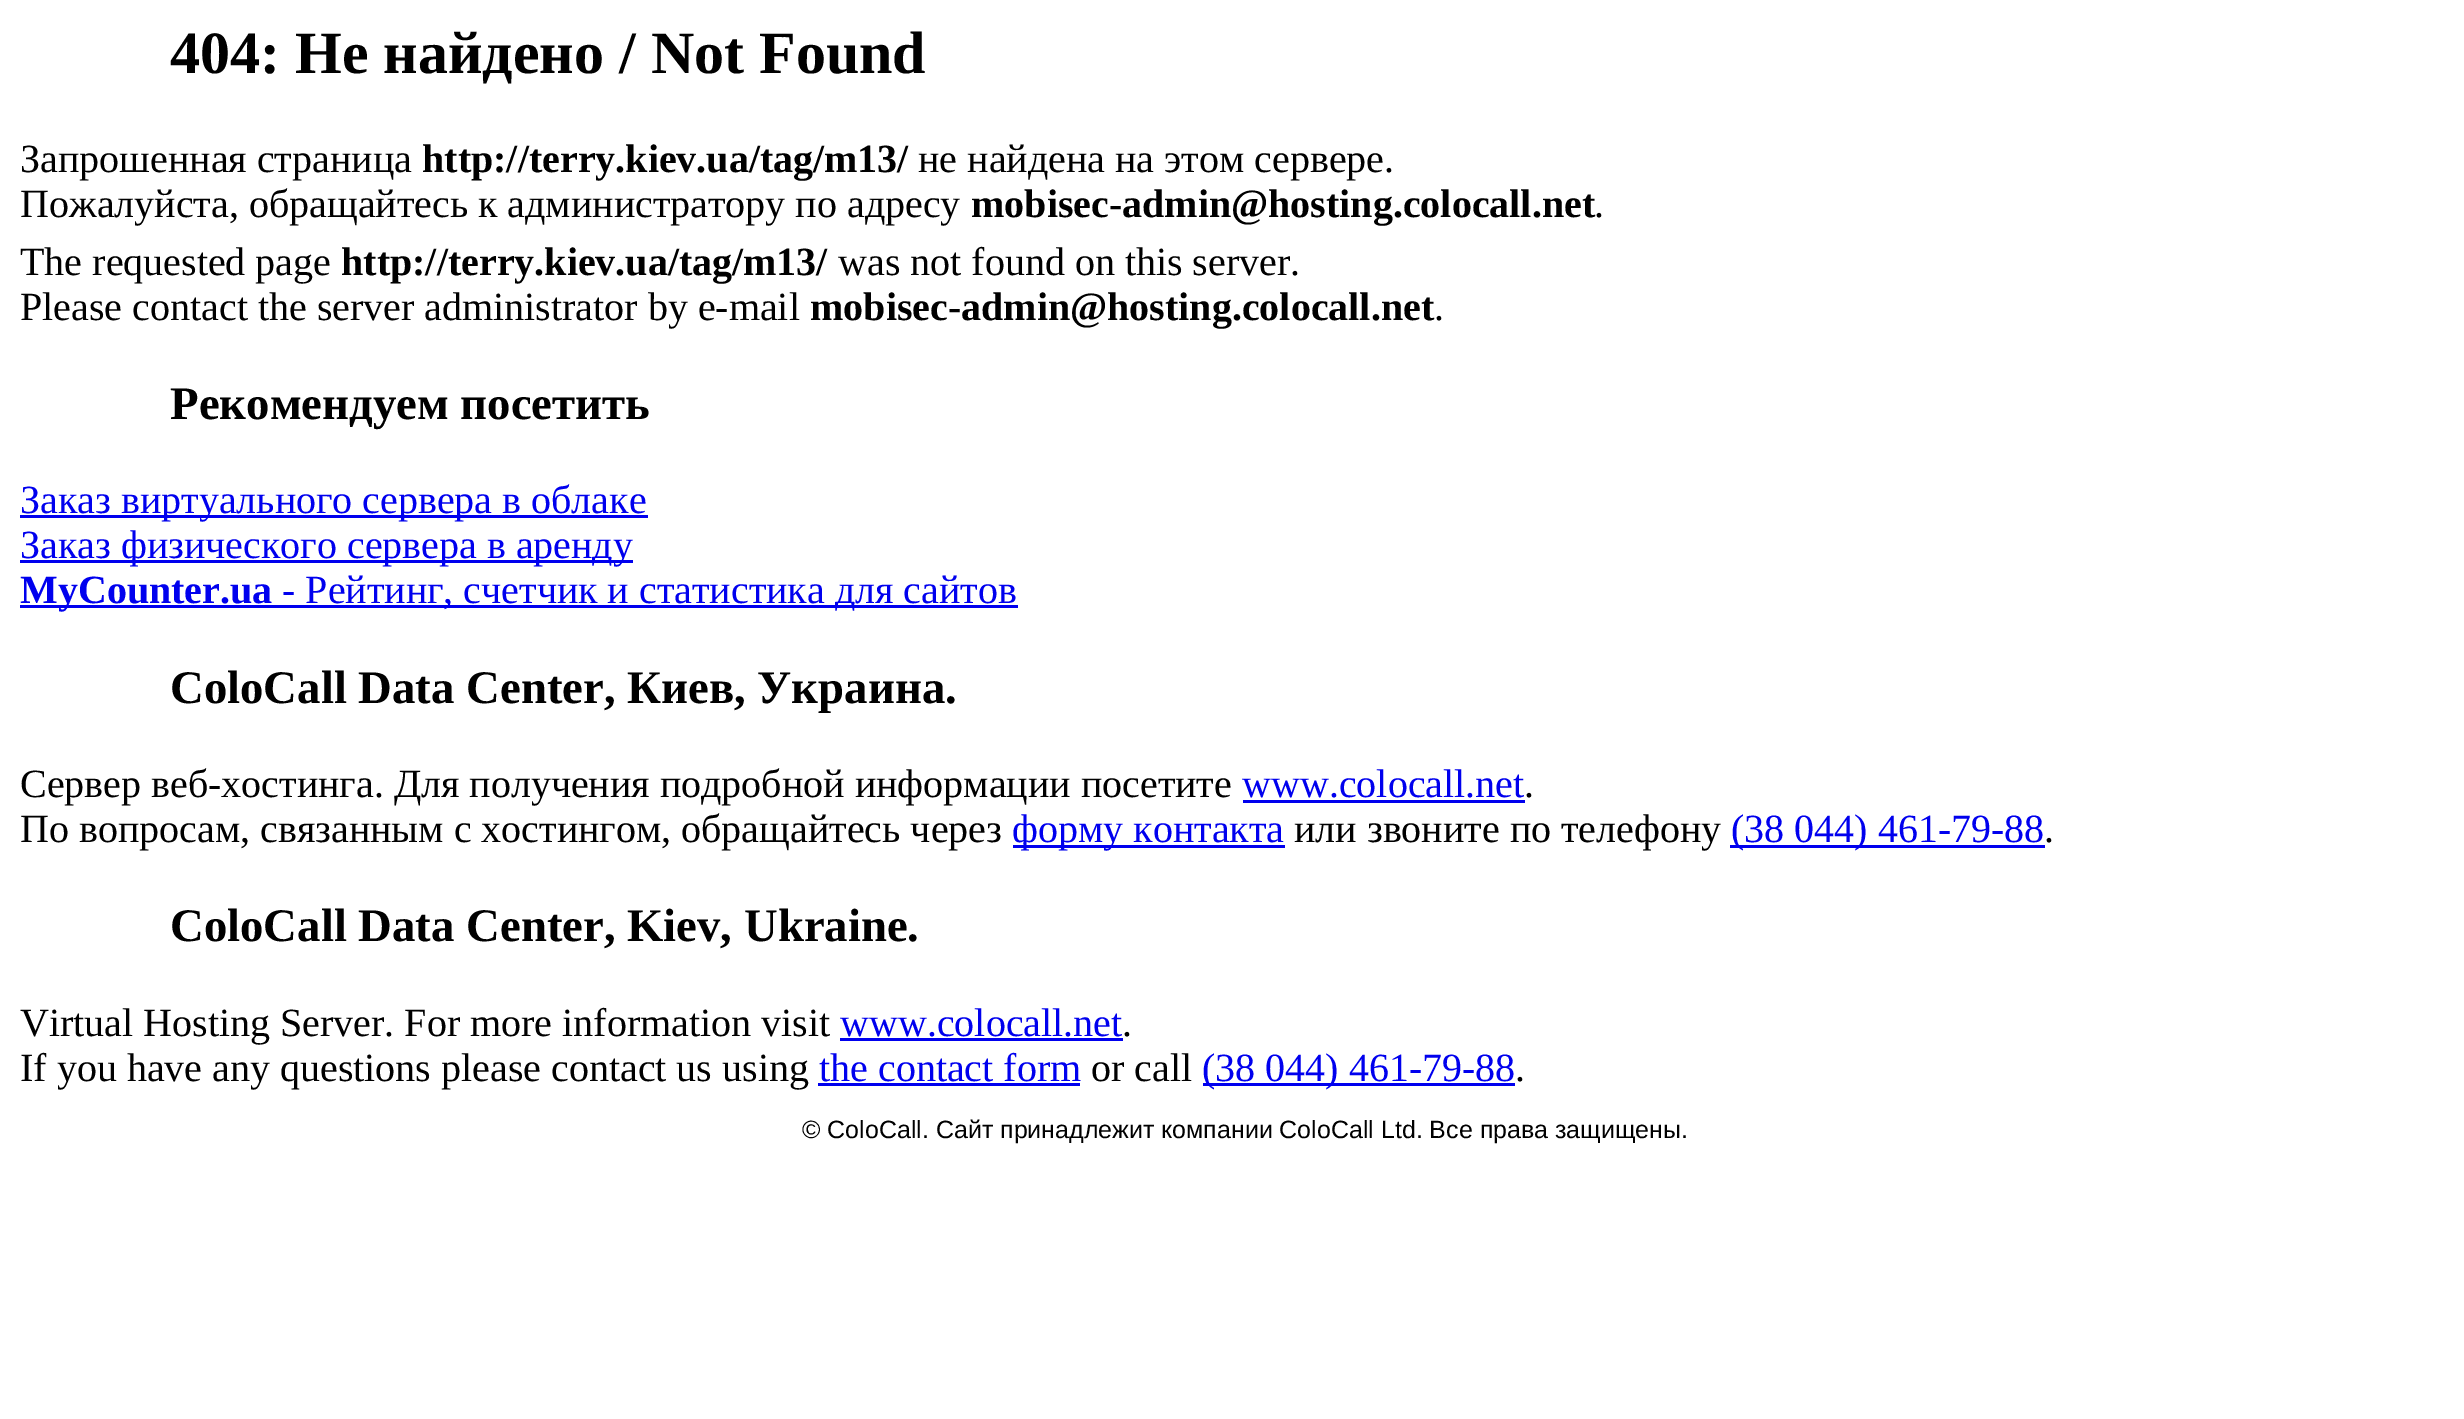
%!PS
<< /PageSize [2464 1419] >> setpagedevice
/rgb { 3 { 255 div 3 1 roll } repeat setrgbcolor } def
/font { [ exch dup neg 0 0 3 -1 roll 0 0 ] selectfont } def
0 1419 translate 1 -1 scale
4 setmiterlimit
255 255 255 rgb
0 0 2464 1419 rectfill
[
  [20 515 628 3 0 0 238]
  [20 560 613 3 0 0 238]
  [20 605 998 3 0 0 238]
  [1243 800 282 3 0 0 238]
  [1013 845 272 3 0 0 238]
  [1730 845 315 3 0 0 238]
  [840 1038 283 3 0 0 238]
  [818 1083 262 3 0 0 238]
  [1203 1083 312 3 0 0 238]
] { aload pop rgb rectfill } forall
/LiberationSerif-Bold 60 font
0 0 0 rgb
170 73 moveto (404: Не найдено / Not Found) show
/LiberationSerif-Regular 40 font
20 172 moveto (Запрошенная страница) show
/LiberationSerif-Bold 40 font
422 172 moveto (http://terry.kiev.ua/tag/m13/) show
/LiberationSerif-Regular 40 font
918 172 moveto (не найдена на этом сервере.) show
20 217 moveto (Пожалуйста, обращайтесь к администратору по адресу) show
/LiberationSerif-Bold 40 font
971 217 moveto (mobisec-admin@hosting.colocall.net) show
/LiberationSerif-Regular 40 font
1594 217 moveto (.) show
20 275 moveto (The requested page) show
/LiberationSerif-Bold 40 font
341 275 moveto (http://terry.kiev.ua/tag/m13/) show
/LiberationSerif-Regular 40 font
838 275 moveto (was not found on this server.) show
20 320 moveto (Please contact the server administrator by e-mail) show
/LiberationSerif-Bold 40 font
810 320 moveto (mobisec-admin@hosting.colocall.net) show
/LiberationSerif-Regular 40 font
1434 320 moveto (.) show
/LiberationSerif-Bold 46.75 font
170 419 moveto (Рекомендуем посетить) show
/LiberationSerif-Regular 40 font
0 0 238 rgb
20 513 moveto (Заказ виртуального сервера в облаке) show
20 558 moveto (Заказ физического сервера в аренду) show
/LiberationSerif-Bold 40 font
20 603 moveto (MyCounter.ua) show
/LiberationSerif-Regular 40 font
282 603 moveto (- Рейтинг, счетчик и статистика для сайтов) show
/LiberationSerif-Bold 46.75 font
0 0 0 rgb
170 703 moveto (ColoCall Data Center, Киев, Украина.) show
/LiberationSerif-Regular 40 font
20 797 moveto (Сервер веб-хостинга. Для получения подробной информации посетите) show
0 0 238 rgb
1242 797 moveto (www.colocall.net) show
0 0 0 rgb
1524 797 moveto (.) show
20 842 moveto (По вопросам, связанным с хостингом, обращайтесь через) show
0 0 238 rgb
1012 842 moveto (форму контакта) show
0 0 0 rgb
1294 842 moveto (или звоните по телефону) show
0 0 238 rgb
1731 842 moveto (\(38 044\) 461-79-88) show
0 0 0 rgb
2044 842 moveto (.) show
/LiberationSerif-Bold 46.75 font
170 941 moveto (ColoCall Data Center, Kiev, Ukraine.) show
/LiberationSerif-Regular 40 font
20 1036 moveto (Virtual Hosting Server. For more information visit) show
0 0 238 rgb
840 1036 moveto (www.colocall.net) show
0 0 0 rgb
1122 1036 moveto (.) show
20 1081 moveto (If you have any questions please contact us using) show
0 0 238 rgb
819 1081 moveto (the contact form) show
0 0 0 rgb
1091 1081 moveto (or call) show
0 0 238 rgb
1202 1081 moveto (\(38 044\) 461-79-88) show
0 0 0 rgb
1515 1081 moveto (.) show
/LiberationSans-Regular 25 font
802 1138 moveto (© ColoCall. Сайт принадлежит компании ColoCall Ltd. Все права защищены.) show
showpage
